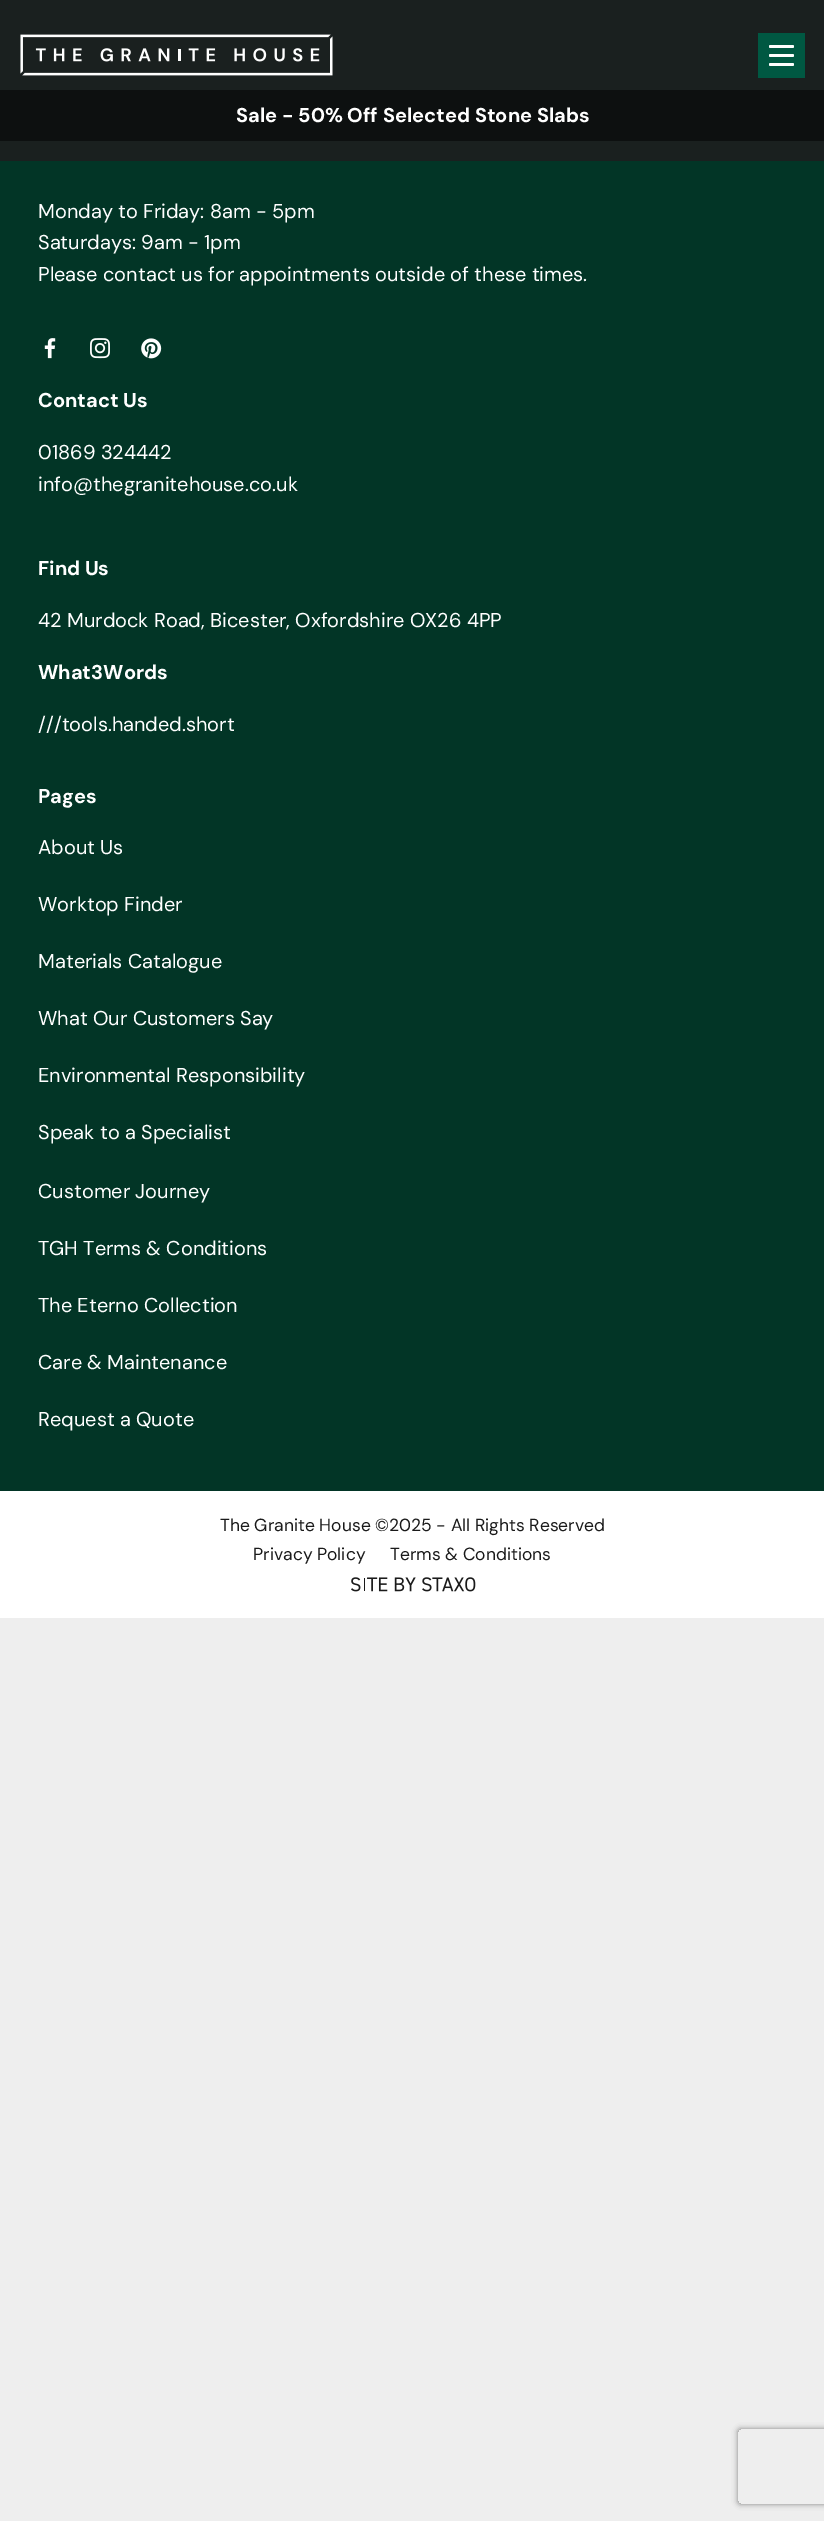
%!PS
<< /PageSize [824 2521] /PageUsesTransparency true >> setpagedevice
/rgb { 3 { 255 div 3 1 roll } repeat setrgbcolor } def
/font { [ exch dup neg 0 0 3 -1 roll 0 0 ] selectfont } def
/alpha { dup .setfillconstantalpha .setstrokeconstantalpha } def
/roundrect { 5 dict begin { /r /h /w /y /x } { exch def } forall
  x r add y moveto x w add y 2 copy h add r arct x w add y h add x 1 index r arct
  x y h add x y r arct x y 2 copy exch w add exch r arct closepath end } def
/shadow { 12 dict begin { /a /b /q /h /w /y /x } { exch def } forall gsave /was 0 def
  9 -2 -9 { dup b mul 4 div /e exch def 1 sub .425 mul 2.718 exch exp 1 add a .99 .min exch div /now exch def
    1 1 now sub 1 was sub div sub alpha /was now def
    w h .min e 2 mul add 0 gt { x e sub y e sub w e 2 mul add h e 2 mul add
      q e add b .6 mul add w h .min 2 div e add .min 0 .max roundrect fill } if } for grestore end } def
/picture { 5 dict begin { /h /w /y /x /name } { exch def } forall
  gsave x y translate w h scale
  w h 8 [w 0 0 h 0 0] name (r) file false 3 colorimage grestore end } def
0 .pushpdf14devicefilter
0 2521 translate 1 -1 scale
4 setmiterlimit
238 238 238 rgb
0 0 824 2521 rectfill
26 32 31 rgb
0 0 824 161 rectfill
(img/1.rgb) 20 34 313 42 picture
0 88 66 rgb
758 33 47 45 rectfill
255 255 255 rgb
769 45 25 3 1.5 roundrect fill
769 54 25 3 1.5 roundrect fill
769 63 25 3 1.5 roundrect fill
13 16 16 rgb
0 90 824 51 rectfill
2 53 38 rgb
0 161 824 1330 rectfill
(img/2.rgb) 44 338 12 21 picture
(img/3.rgb) 90 338 20 21 picture
(img/4.rgb) 141 338 21 21 picture
255 255 255 rgb
0 1491 824 127 rectfill
(img/5.rgb) 351 1577 125 15 picture
gsave
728 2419 moveto 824 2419 lineto 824 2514 lineto 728 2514 lineto closepath 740.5 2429 moveto 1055.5 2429 lineto 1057 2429 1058 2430 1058 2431.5 curveto 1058 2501.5 lineto 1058 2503 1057 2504 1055.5 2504 curveto 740.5 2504 lineto 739 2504 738 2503 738 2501.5 curveto 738 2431.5 lineto 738 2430 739 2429 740.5 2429 curveto closepath eoclip newpath
128 128 128 rgb
738 2429 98 75 2.5 3 1 shadow
grestore
/DMSans-Bold 20 font
236 122 moveto (Sale - 50% Off Selected Stone Slabs) show
/DMSans-Regular 20 font
[
  [(Monday to Friday: 8am - 5pm) 38 218]
  [(Saturdays: 9am - 1pm) 38 249]
  [(Please contact us for appointments outside of these times.) 38 281]
] { aload pop moveto show } forall
/DMSans-Bold 20 font
38 407 moveto (Contact Us) show
/DMSans-Regular 20 font
38 459 moveto (01869 324442) show
38 491 moveto (info@thegranitehouse.co.uk) show
/DMSans-Bold 20 font
38 575 moveto (Find Us) show
/DMSans-Regular 20 font
38 627 moveto (42 Murdock Road, Bicester, Oxfordshire OX26 4PP) show
/DMSans-Bold 20 font
38 679 moveto (What3Words) show
/DMSans-Regular 20 font
38 731 moveto (///tools.handed.short) show
/DMSans-Bold 20 font
38 803 moveto (Pages) show
/DMSans-Regular 20 font
[
  [(About Us) 38 854]
  [(Worktop Finder) 38 911]
  [(Materials Catalogue) 38 968]
  [(What Our Customers Say) 38 1025]
  [(Environmental Responsibility) 38 1082]
  [(Speak to a Specialist) 38 1139]
  [(Customer Journey) 38 1198]
  [(TGH Terms & Conditions) 38 1255]
  [(The Eterno Collection) 38 1312]
  [(Care & Maintenance) 38 1369]
  [(Request a Quote) 38 1426]
] { aload pop moveto show } forall
/DMSans-Regular 17.5 font
26 26 26 rgb
[
  [(The Granite House ©2025 - All Rights Reserved) 220 1531]
  [(Privacy Policy) 253 1560]
  [(Terms & Conditions) 390 1560]
] { aload pop moveto show } forall
.poppdf14devicefilter showpage
